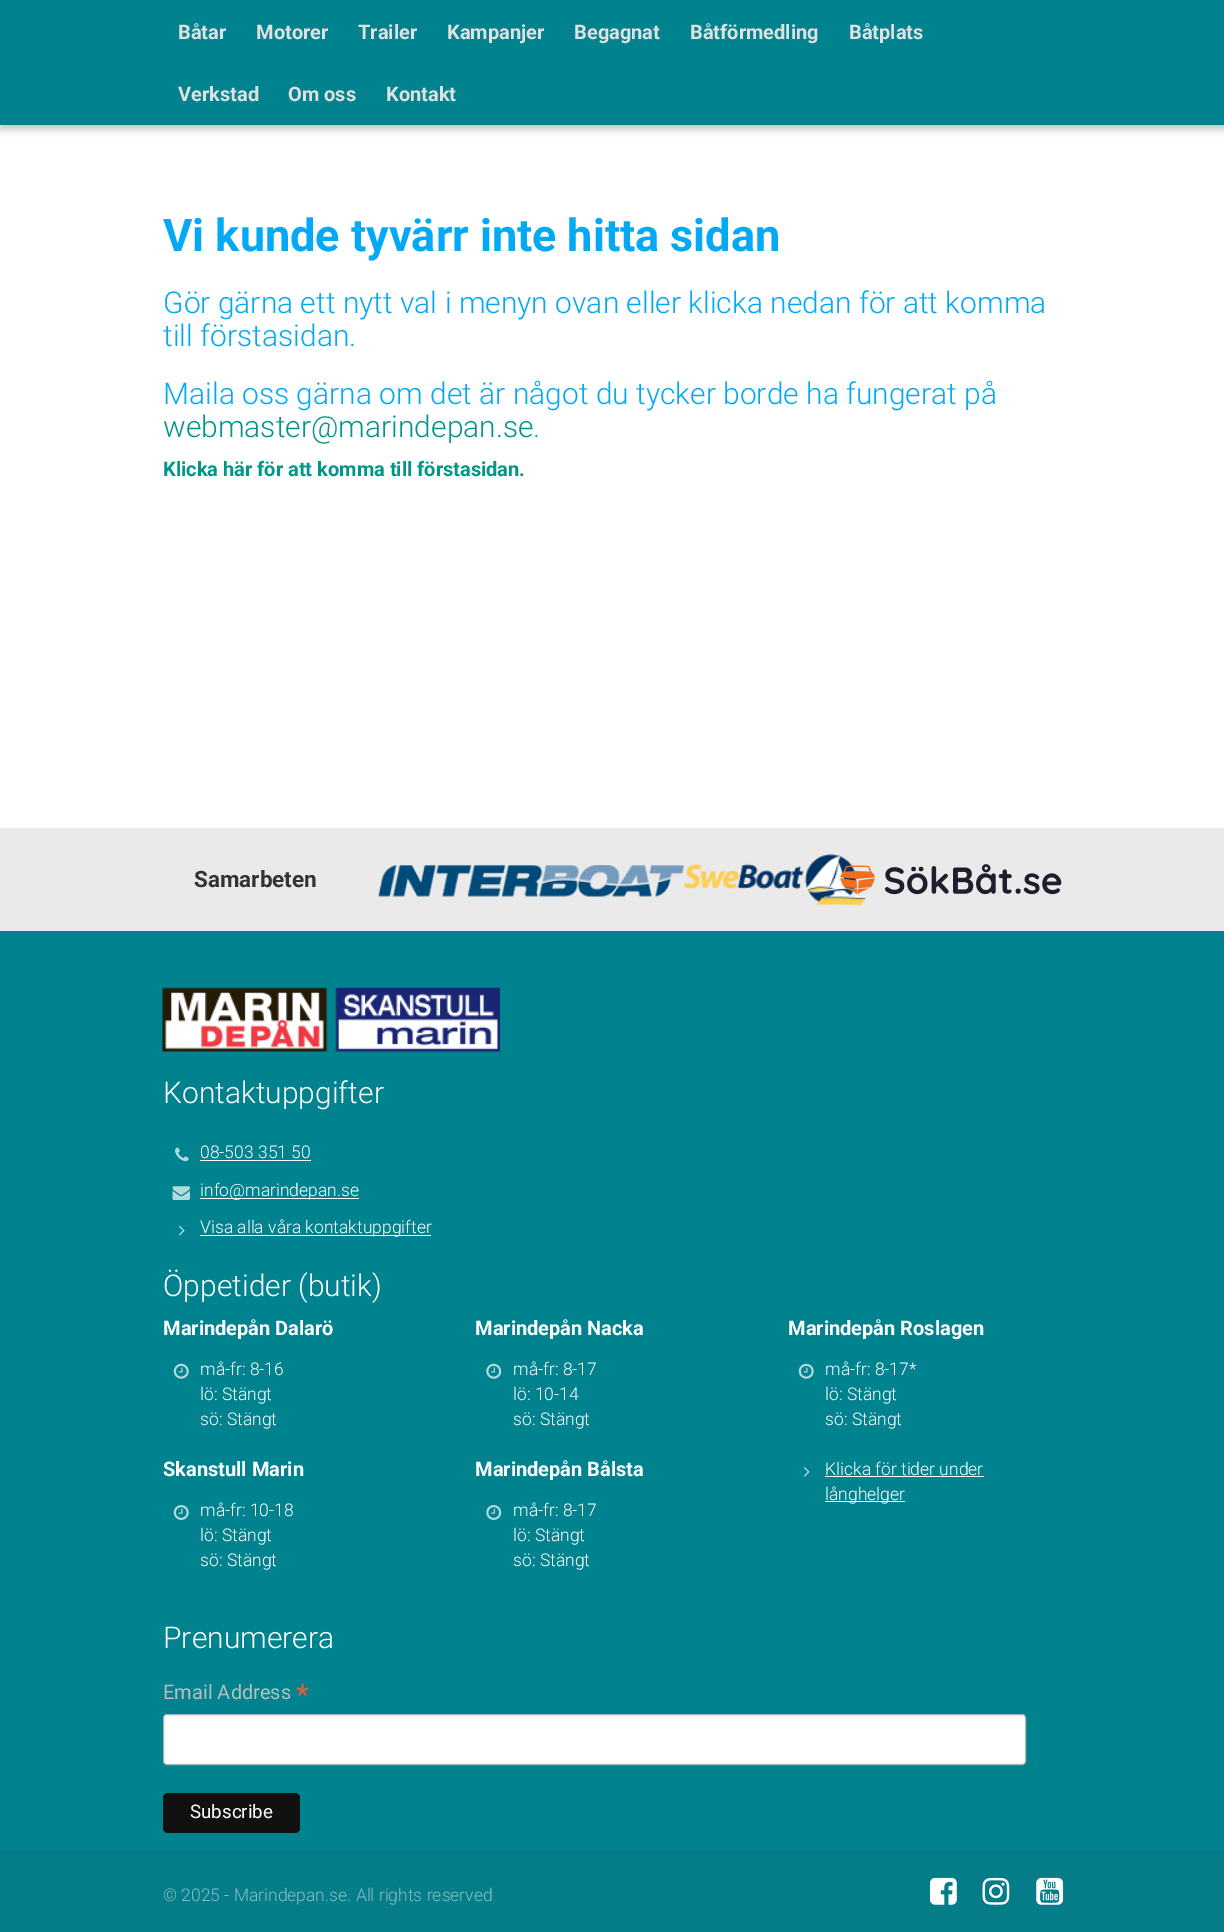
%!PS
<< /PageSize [1224 1932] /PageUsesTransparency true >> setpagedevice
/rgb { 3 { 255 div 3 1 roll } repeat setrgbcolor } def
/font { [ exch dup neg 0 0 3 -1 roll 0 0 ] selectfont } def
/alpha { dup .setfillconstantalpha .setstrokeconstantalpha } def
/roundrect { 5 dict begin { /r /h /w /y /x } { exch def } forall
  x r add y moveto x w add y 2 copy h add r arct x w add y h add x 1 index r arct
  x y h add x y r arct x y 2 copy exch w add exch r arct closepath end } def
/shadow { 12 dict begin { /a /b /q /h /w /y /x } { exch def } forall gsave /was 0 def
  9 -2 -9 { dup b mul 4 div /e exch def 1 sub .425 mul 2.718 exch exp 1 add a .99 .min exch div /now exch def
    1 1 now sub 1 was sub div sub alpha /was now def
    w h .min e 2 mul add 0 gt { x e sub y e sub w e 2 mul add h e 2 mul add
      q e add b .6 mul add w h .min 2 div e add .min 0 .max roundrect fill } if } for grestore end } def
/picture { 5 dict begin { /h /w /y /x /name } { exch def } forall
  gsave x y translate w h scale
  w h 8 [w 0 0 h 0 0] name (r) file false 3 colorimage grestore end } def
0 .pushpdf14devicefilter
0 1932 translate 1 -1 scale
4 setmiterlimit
255 255 255 rgb
0 0 1224 1932 rectfill
0 0 0 rgb
0 4 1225 125 0 4 0.16 shadow
0 4 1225 125 0 4 0.1 shadow
0 131 143 rgb
0 0 1224 125 rectfill
234 234 234 rgb
0 828 1224 103 rectfill
(img/1.rgb) 378 865 306 32 picture
(img/2.rgb) 683 854 184 52 picture
(img/3.rgb) 840 864 222 31 picture
0 131 143 rgb
0 931 1224 920 rectfill
(img/4.rgb) 162 987 338 65 picture
(img/5.rgb) 175 1147 14 15 picture
255 255 255 rgb
200 1160 111 1 rectfill
(img/6.rgb) 172 1186 18 14 picture
200 1198 159 1 rectfill
(img/7.rgb) 178 1225 7 11 picture
200 1235 231 1 rectfill
(img/8.rgb) 173 1363 16 16 picture
(img/9.rgb) 486 1363 16 16 picture
(img/8.rgb) 798 1363 16 16 picture
(img/10.rgb) 173 1505 16 15 picture
(img/11.rgb) 486 1505 16 15 picture
(img/12.rgb) 803 1467 7 10 picture
825 1476 159 1 rectfill
825 1501 80 1 rectfill
163.5 1714.5 862 50 3.5 roundrect gsave fill grestore
171 176 178 rgb
stroke
17 17 17 rgb
163 1793 137 40 5 roundrect fill
4 125 136 rgb
0 1851 1224 81 rectfill
(img/13.rgb) 930 1877 27 28 picture
(img/14.rgb) 982 1877 28 28 picture
(img/15.rgb) 1036 1877 28 28 picture
/Roboto-Bold 20 font
224 224 224 rgb
[
  [(Båtar) 178 39]
  [(Motorer) 256 39]
  [(Trailer) 358 39]
  [(Kampanjer) 447 39]
  [(Begagnat) 574 39]
  [(Båtförmedling) 690 39]
  [(Båtplats) 849 39]
  [(Verkstad) 178 101]
  [(Om oss) 288 101]
  [(Kontakt) 386 101]
] { aload pop moveto show } forall
/Roboto-Bold 45 font
3 169 244 rgb
163 251 moveto (Vi kunde tyvärr inte hitta sidan) show
/Roboto-Light 30 font
[
  [(Gör gärna ett nytt val i menyn ovan eller klicka nedan för att komma) 163 313]
  [(till förstasidan.) 163 346]
  [(Maila oss gärna om det är något du tycker borde ha fungerat på) 163 404]
] { aload pop moveto show } forall
0 150 136 rgb
163 437 moveto (webmaster@marindepan.se) show
3 169 244 rgb
533 437 moveto (.) show
/Roboto-Bold 20 font
0 150 136 rgb
163 476 moveto (Klicka här för att komma till förstasidan.) show
/Roboto-Bold 22.5 font
51 51 51 rgb
194 887 moveto (Samarbeten) show
/Roboto-Light 30 font
255 255 255 rgb
163 1103 moveto (Kontaktuppgifter) show
/Roboto-Light 17.5 font
[
  [(08-503 351 50) 200 1158]
  [(info@marindepan.se) 200 1196]
  [(Visa alla våra kontaktuppgifter) 200 1233]
] { aload pop moveto show } forall
/Roboto-Light 30 font
163 1296 moveto (Öppetider \(butik\)) show
/Roboto-Bold 20 font
163 1335 moveto (Marindepån Dalarö) show
/Roboto-Light 17.5 font
[
  [(må-fr: 8-16) 200 1375]
  [(lö: Stängt) 200 1400]
  [(sö: Stängt) 200 1425]
] { aload pop moveto show } forall
/Roboto-Bold 20 font
475 1335 moveto (Marindepån Nacka) show
/Roboto-Light 17.5 font
[
  [(må-fr: 8-17) 513 1375]
  [(lö: 10-14) 513 1400]
  [(sö: Stängt) 513 1425]
] { aload pop moveto show } forall
/Roboto-Bold 20 font
788 1335 moveto (Marindepån Roslagen) show
/Roboto-Light 17.5 font
[
  [(må-fr: 8-17*) 825 1375]
  [(lö: Stängt) 825 1400]
  [(sö: Stängt) 825 1425]
] { aload pop moveto show } forall
/Roboto-Bold 20 font
163 1476 moveto (Skanstull Marin) show
/Roboto-Light 17.5 font
[
  [(må-fr: 10-18) 200 1516]
  [(lö: Stängt) 200 1541]
  [(sö: Stängt) 200 1566]
] { aload pop moveto show } forall
/Roboto-Bold 20 font
475 1476 moveto (Marindepån Bålsta) show
/Roboto-Light 17.5 font
[
  [(må-fr: 8-17) 513 1516]
  [(lö: Stängt) 513 1541]
  [(sö: Stängt) 513 1566]
  [(Klicka för tider under) 825 1475]
  [(långhelger) 825 1500]
] { aload pop moveto show } forall
/Roboto-Light 30 font
163 1648 moveto (Prenumerera) show
/Roboto-Regular 20 font
189 189 189 rgb
163 1699 moveto (Email Address) show
/Roboto-Regular 30 font
232 92 65 rgb
296 1705 moveto (*) show
/Roboto-Regular 18.75 font
255 255 255 rgb
190 1818 moveto (Subscribe) show
/Roboto-Light 17.5 font
130 190 196 rgb
163 1901 moveto (© 2025 - Marindepan.se. All rights reserved) show
.poppdf14devicefilter showpage
